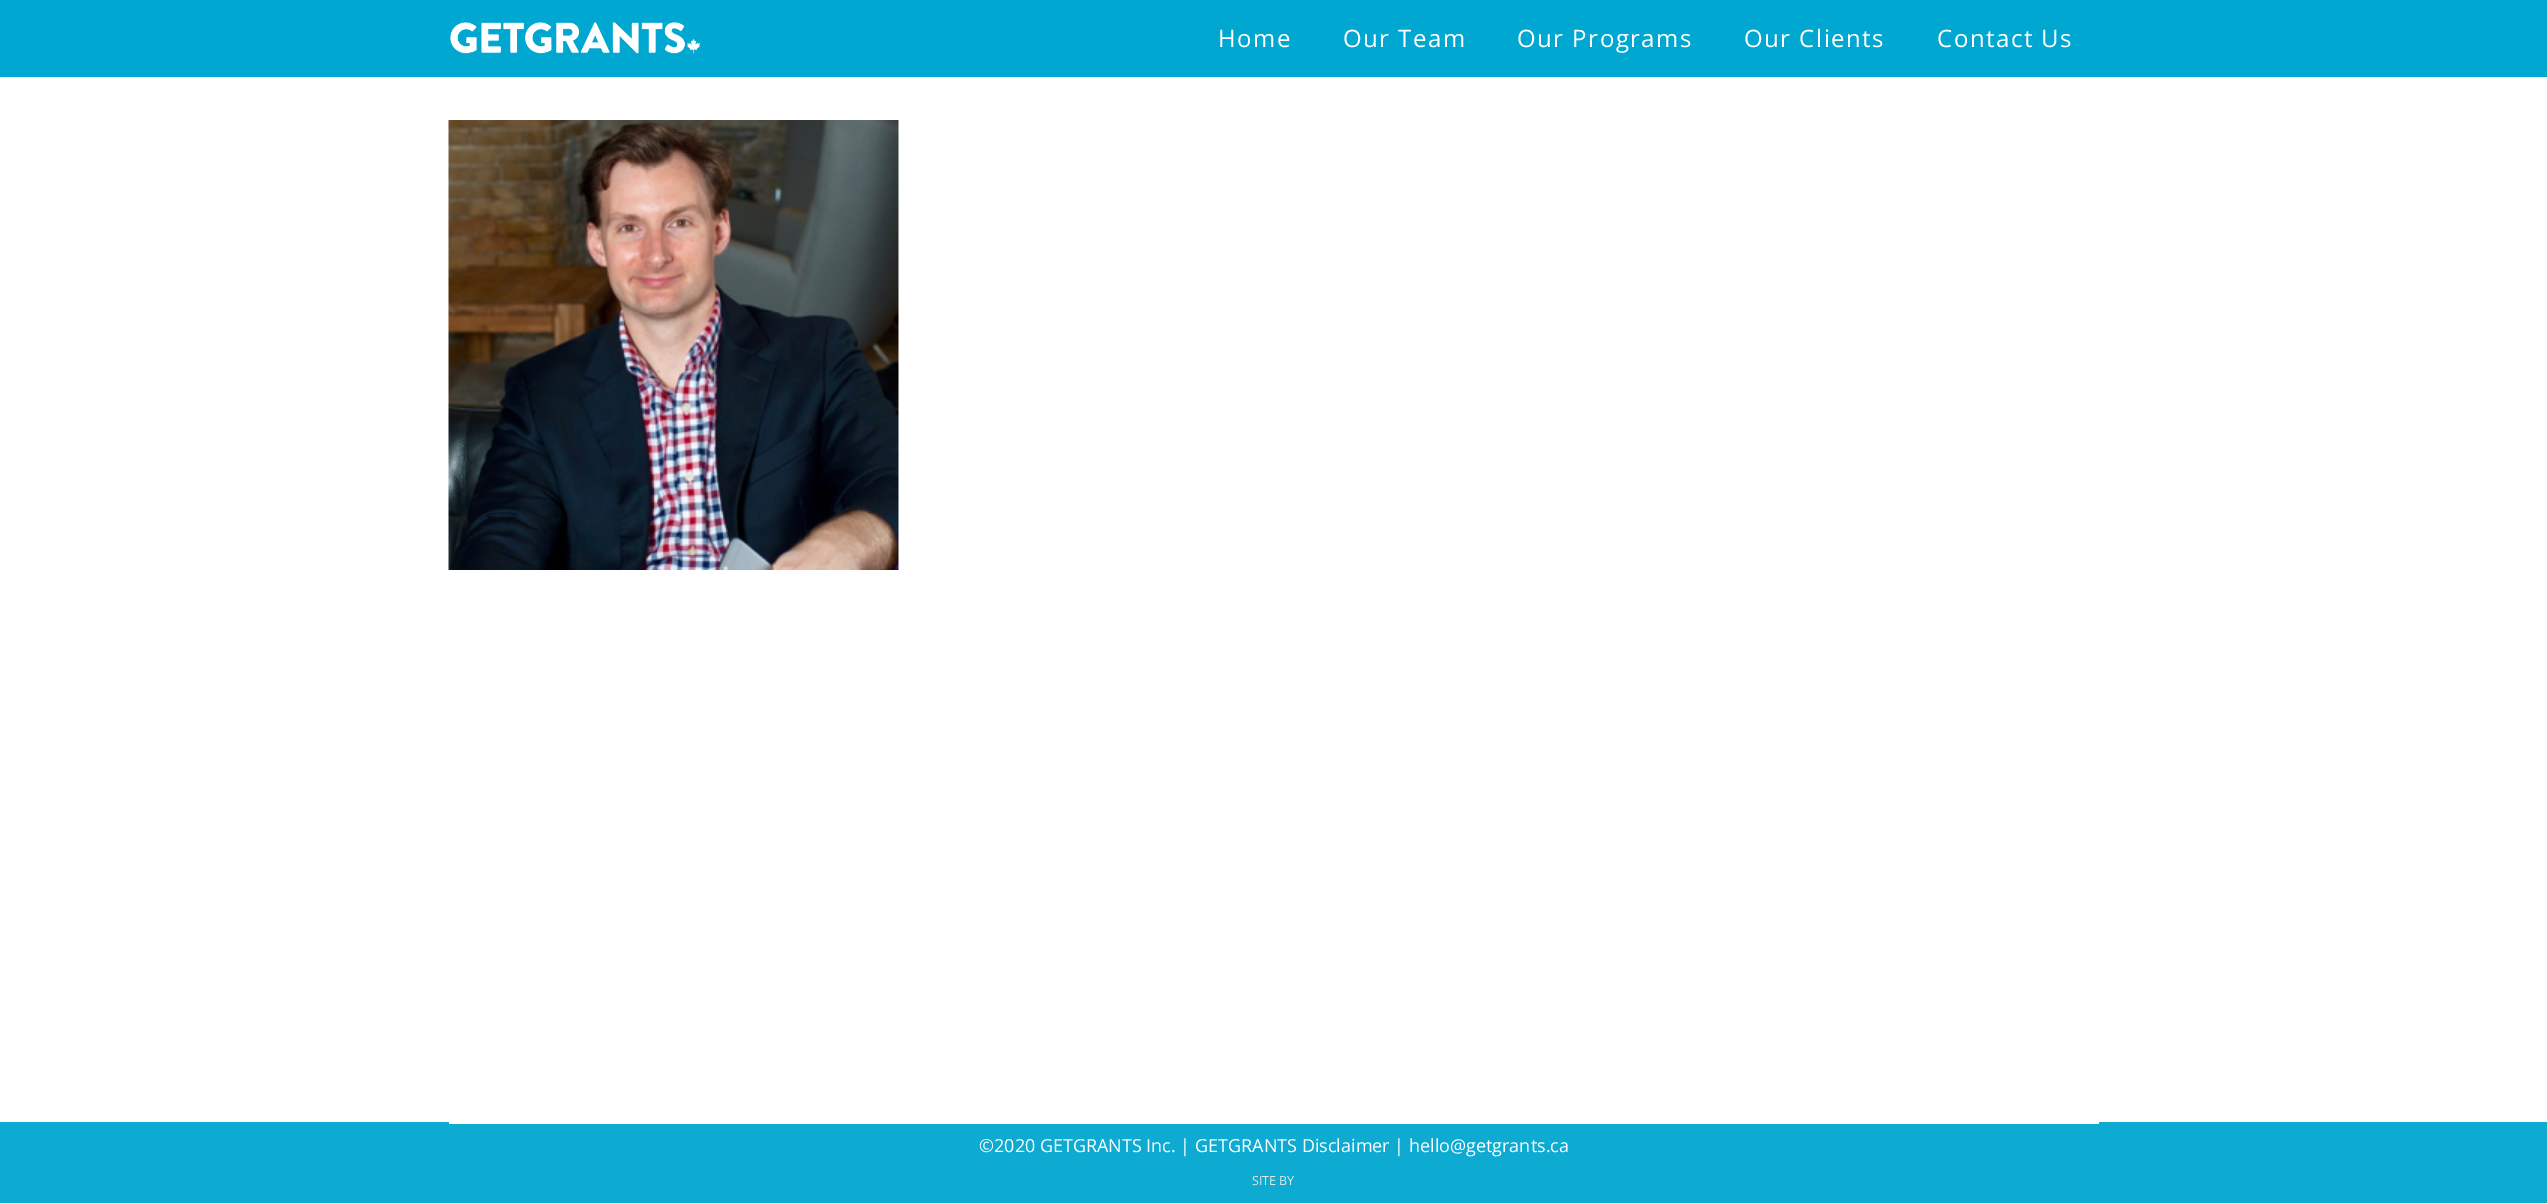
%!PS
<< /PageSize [2547 1204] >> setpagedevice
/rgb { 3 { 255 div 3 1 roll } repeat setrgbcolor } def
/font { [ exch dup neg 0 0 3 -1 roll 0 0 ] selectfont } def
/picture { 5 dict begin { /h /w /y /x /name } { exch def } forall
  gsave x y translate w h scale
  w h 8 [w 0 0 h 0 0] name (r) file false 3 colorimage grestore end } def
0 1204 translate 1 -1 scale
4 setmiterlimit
255 255 255 rgb
0 0 2547 1204 rectfill
0 167 209 rgb
0 0 2547 77 rectfill
(img/1.rgb) 450 22 251 32 picture
(img/2.rgb) 448 120 451 450 picture
13 170 209 rgb
0 1122 2547 81 rectfill
255 255 255 rgb
449 1122 1650 2 rectfill
/OpenSans-Regular 24 font
1218 47 moveto 1.5 0 (Home) ashow
1343 47 moveto 1.5 0 (Our Team) ashow
1517 47 moveto 1.5 0 (Our Programs) ashow
1744 47 moveto 1.5 0 (Our Clients) ashow
1937 47 moveto 1.5 0 (Contact Us) ashow
/OpenSans-Regular 18 font
979 1152 moveto (©2020 GETGRANTS Inc. | GETGRANTS Disclaimer | hello@getgrants.ca) show
/OpenSans-Regular 12.5 font
232 232 232 rgb
1252 1185 moveto (SITE BY) show
showpage
